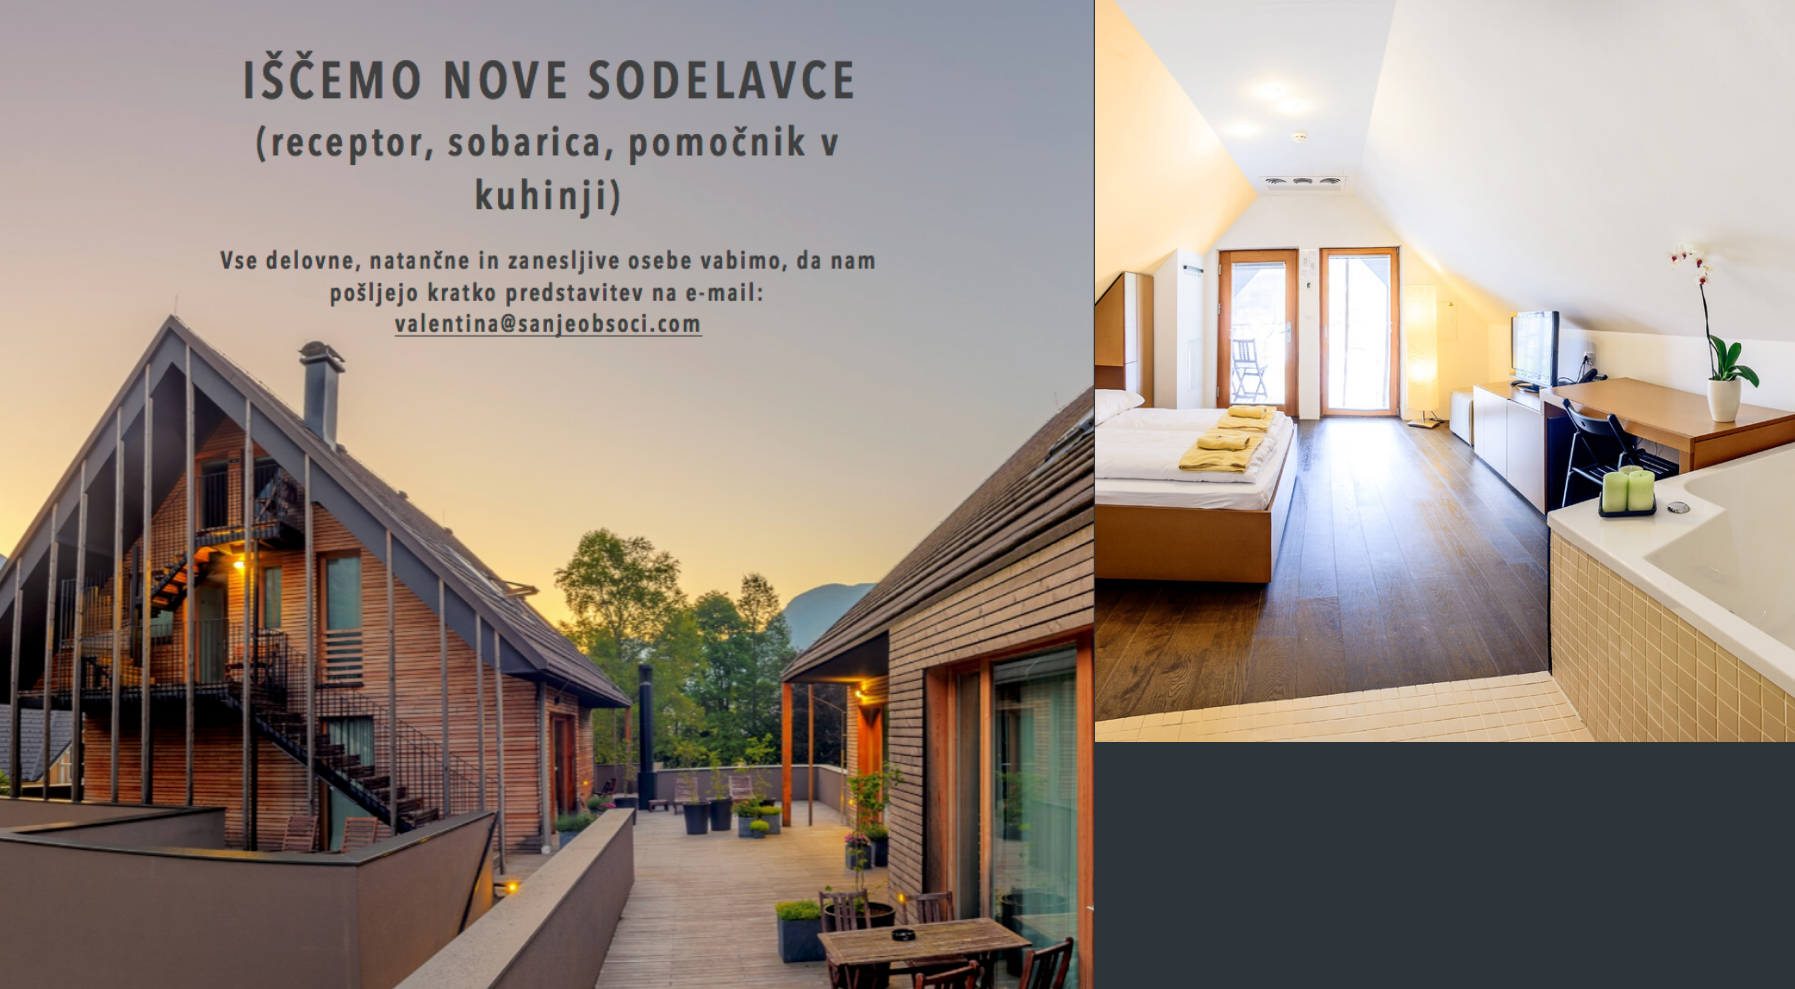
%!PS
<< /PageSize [1795 989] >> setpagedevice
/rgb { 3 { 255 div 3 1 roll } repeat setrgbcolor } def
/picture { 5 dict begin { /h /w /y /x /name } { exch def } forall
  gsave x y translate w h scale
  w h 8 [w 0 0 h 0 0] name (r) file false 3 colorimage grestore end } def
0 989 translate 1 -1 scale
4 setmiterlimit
44 51 57 rgb
0 0 1795 989 rectfill
(img/1.rgb) 0 0 1094 989 picture
(img/2.rgb) 1095 0 700 742 picture
showpage
